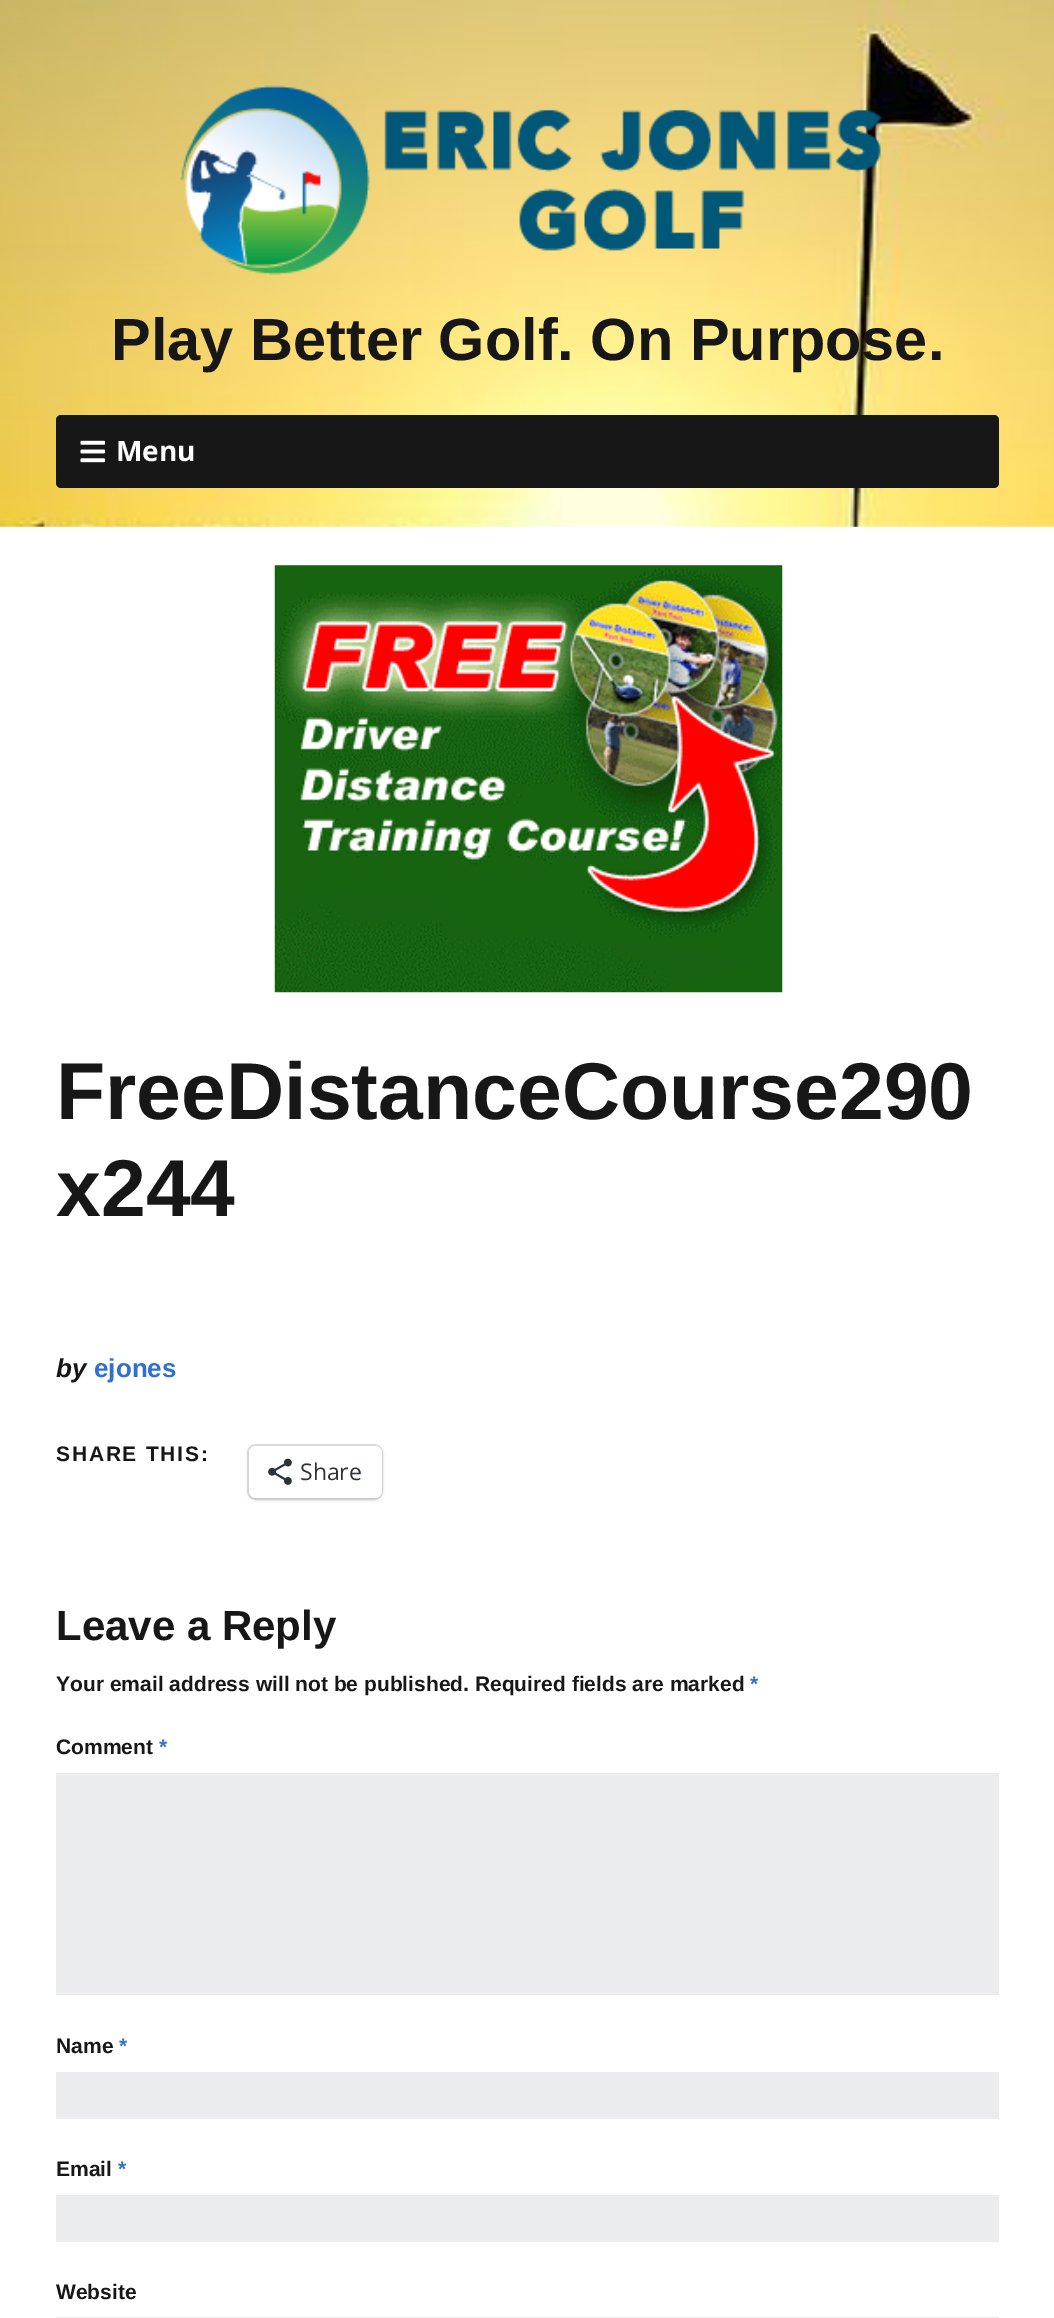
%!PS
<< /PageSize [1054 2318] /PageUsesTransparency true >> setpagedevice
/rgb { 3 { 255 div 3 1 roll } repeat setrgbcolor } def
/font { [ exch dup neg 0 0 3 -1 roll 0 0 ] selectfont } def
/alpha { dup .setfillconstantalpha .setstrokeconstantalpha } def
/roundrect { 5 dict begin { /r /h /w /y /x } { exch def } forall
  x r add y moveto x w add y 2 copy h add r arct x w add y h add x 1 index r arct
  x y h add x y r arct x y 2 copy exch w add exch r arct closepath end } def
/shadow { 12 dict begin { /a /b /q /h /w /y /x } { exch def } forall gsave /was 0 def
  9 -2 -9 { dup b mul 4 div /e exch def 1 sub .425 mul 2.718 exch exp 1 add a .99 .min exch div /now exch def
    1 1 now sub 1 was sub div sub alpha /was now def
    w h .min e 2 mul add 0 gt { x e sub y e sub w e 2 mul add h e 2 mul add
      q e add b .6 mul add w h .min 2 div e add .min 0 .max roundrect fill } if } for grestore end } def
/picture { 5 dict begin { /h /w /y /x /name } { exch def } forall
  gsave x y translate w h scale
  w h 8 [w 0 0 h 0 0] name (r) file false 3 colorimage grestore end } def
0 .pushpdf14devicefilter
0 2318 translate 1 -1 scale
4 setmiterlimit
255 255 255 rgb
0 0 1054 2318 rectfill
(img/1.rgb) 0 0 1054 527 picture
(img/2.rgb) 180 85 703 191 picture
23 23 23 rgb
56 415 943 73 5 roundrect fill
(img/3.rgb) 80 440 25 23 picture
(img/4.rgb) 274 565 509 428 picture
224 224 224 rgb
2 setlinewidth
248 1445 134 54 8 roundrect stroke
0 0 0 rgb
249 1447 133 53 7 2 0.12 shadow
255 255 255 rgb
249 1446 133 52 7 roundrect fill
(img/5.rgb) 268 1458 24 27 picture
[
  [56 1773 943 222 234 236 238]
  [56 2072 943 47 234 236 238]
  [56 2195 943 47 234 236 238]
  [56 2317 943 1 234 236 238]
] { aload pop rgb rectfill } forall
/LiberationSans-Bold 59.5 font
23 23 23 rgb
111 360 moveto (Play Better Golf. On Purpose.) show
/OpenSans-Bold 28 font
255 255 255 rgb
116 461 moveto (Menu) show
/LiberationSans-Bold 80.5 font
23 23 23 rgb
56 1119 moveto (FreeDistanceCourse290) show
56 1216 moveto (x244) show
/LiberationSans-BoldItalic 26 font
56 1377 moveto (by) show
/LiberationSans-Bold 26 font
48 112 209 rgb
94 1377 moveto (ejones) show
/LiberationSans-Bold 21 font
23 23 23 rgb
56 1461 moveto 1.75 0 (SHARE THIS:) ashow
/OpenSans-Regular 23 font
44 51 56 rgb
300 1480 moveto (Share) show
/LiberationSans-Bold 42 font
23 23 23 rgb
56 1640 moveto (Leave a Reply) show
/LiberationSans-Bold 21 font
56 1691 moveto (Your email address will not be published. Required fields are marked) show
48 112 209 rgb
750 1691 moveto (*) show
23 23 23 rgb
56 1754 moveto (Comment) show
48 112 209 rgb
159 1754 moveto (*) show
23 23 23 rgb
56 2053 moveto (Name) show
48 112 209 rgb
119 2053 moveto (*) show
23 23 23 rgb
56 2176 moveto (Email) show
48 112 209 rgb
118 2176 moveto (*) show
23 23 23 rgb
56 2299 moveto (Website) show
.poppdf14devicefilter showpage
